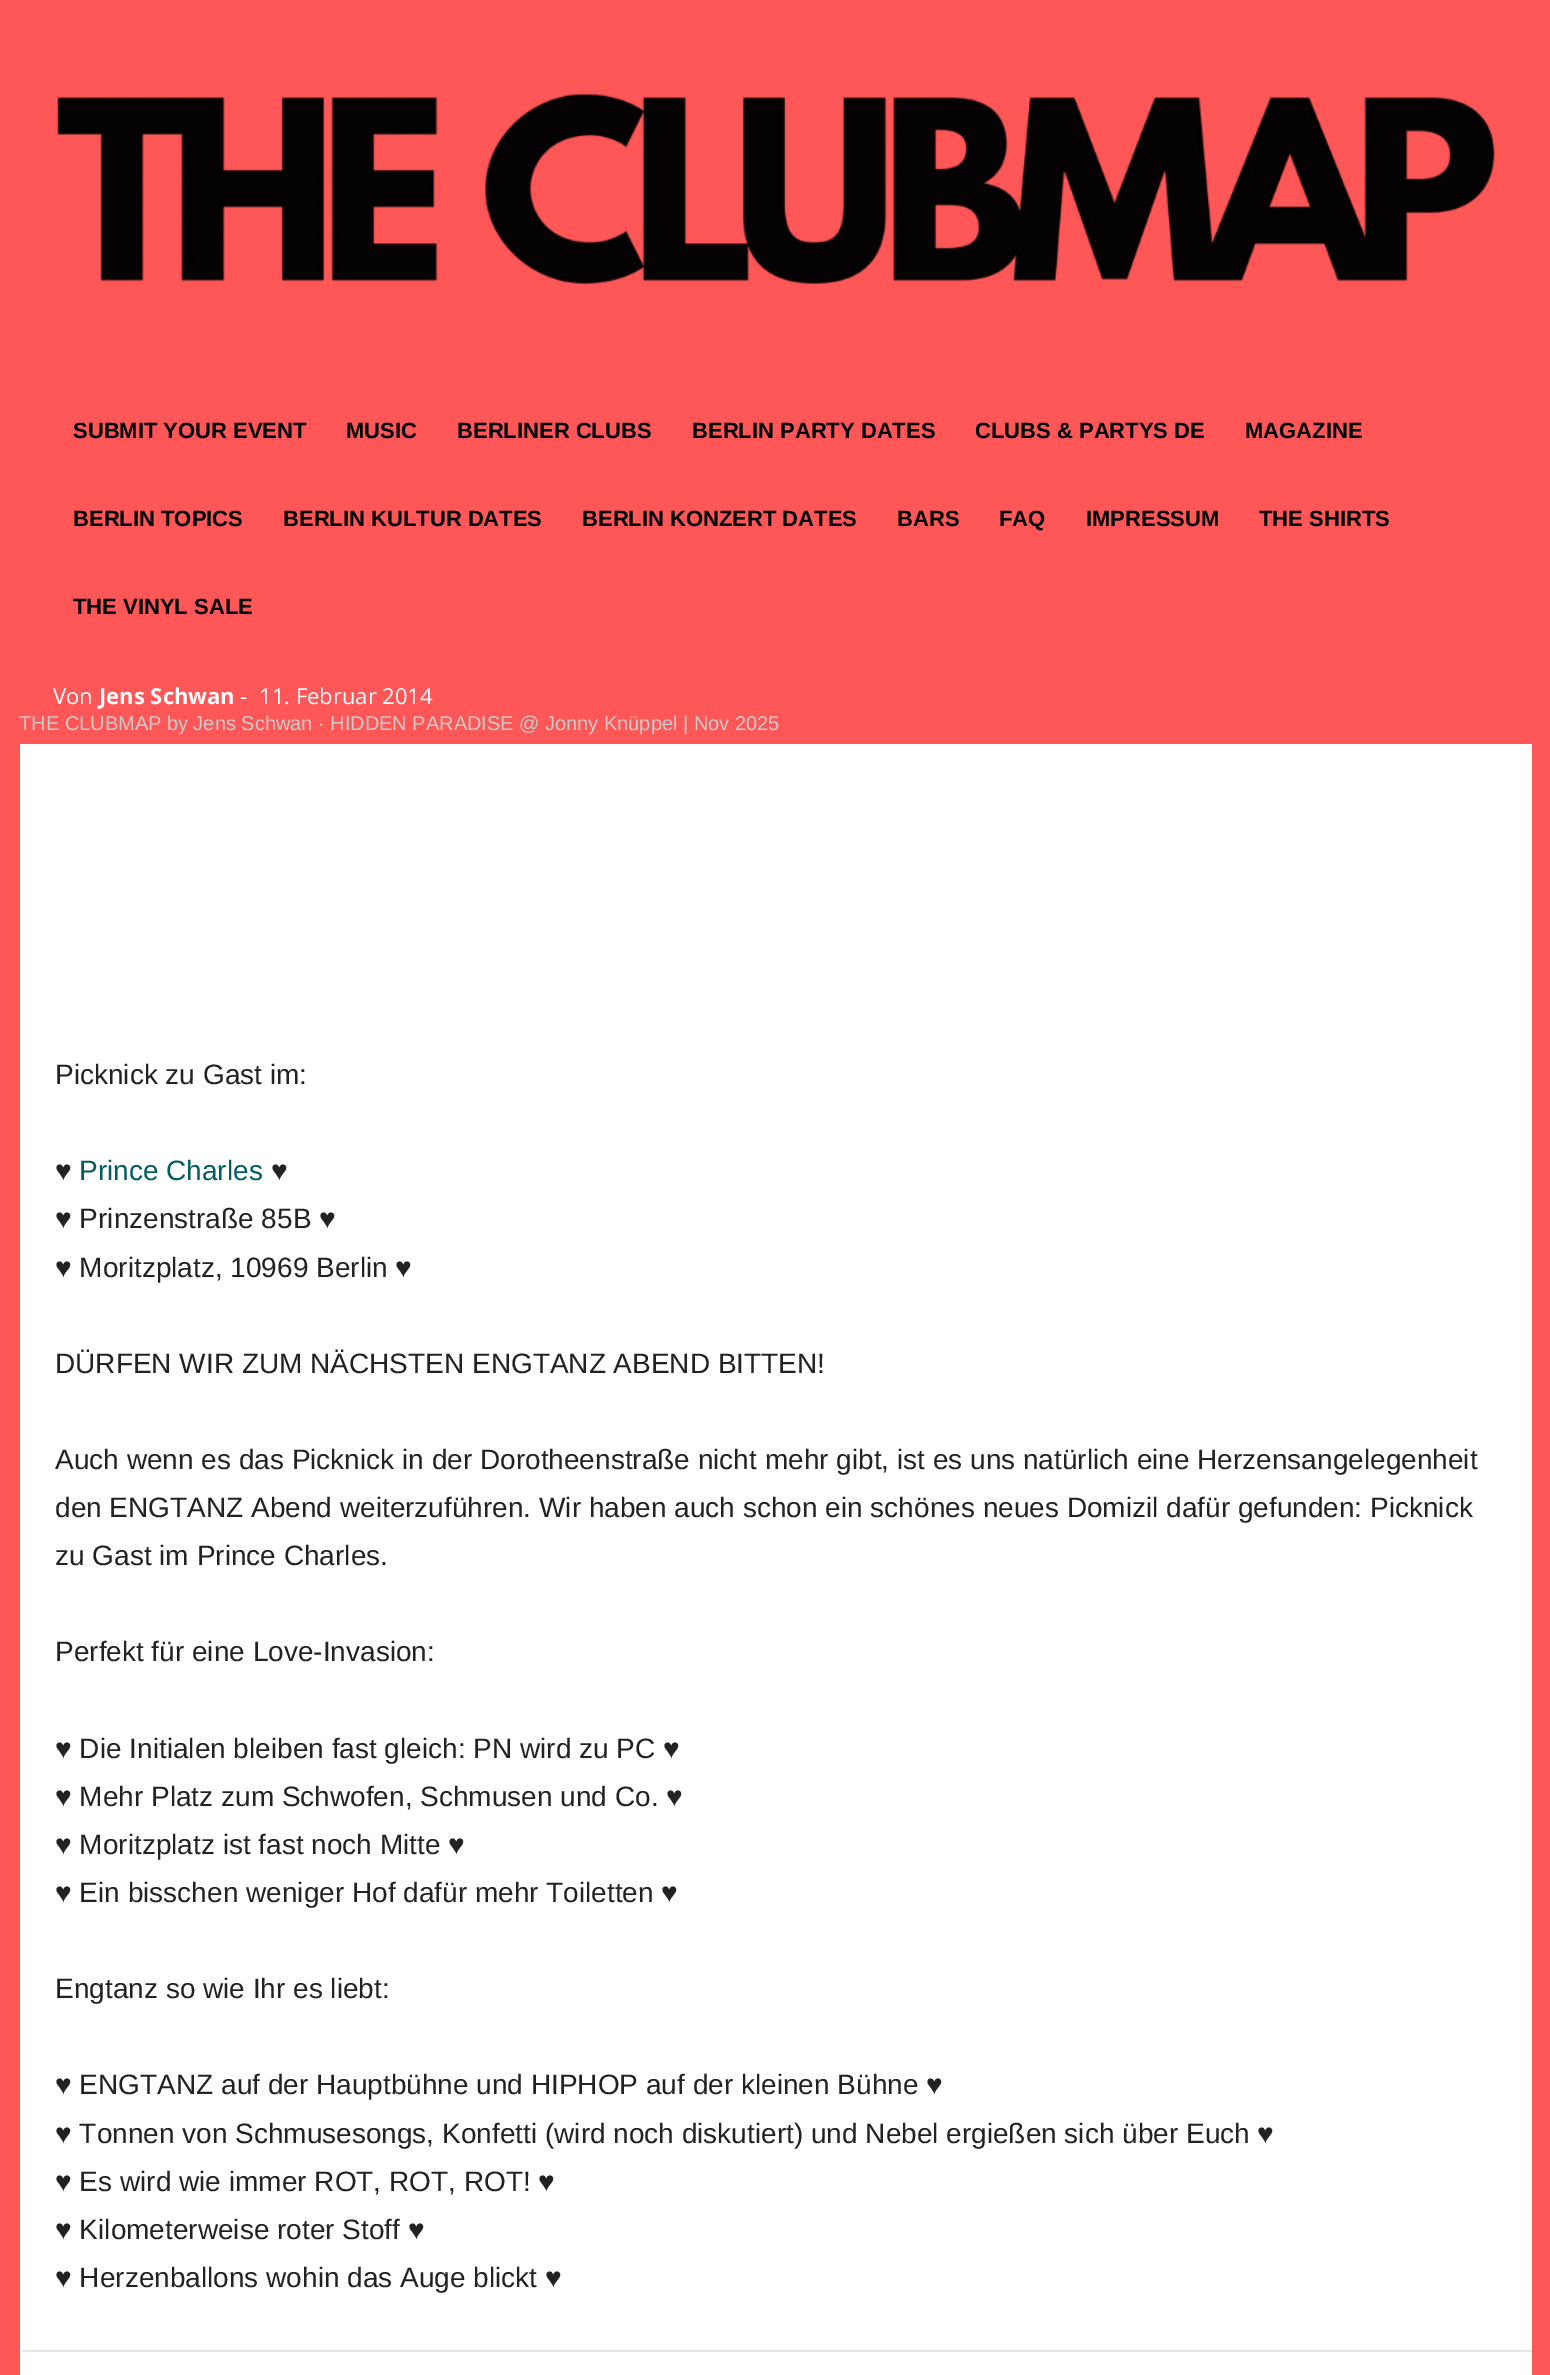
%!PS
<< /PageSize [1550 2375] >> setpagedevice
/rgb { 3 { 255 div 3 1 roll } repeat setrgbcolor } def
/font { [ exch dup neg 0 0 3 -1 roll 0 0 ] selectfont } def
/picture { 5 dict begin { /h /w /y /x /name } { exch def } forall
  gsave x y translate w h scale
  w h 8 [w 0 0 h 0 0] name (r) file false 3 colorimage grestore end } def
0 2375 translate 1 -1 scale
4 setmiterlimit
255 87 87 rgb
0 0 1550 2375 rectfill
(img/1.rgb) 57 93 1438 192 picture
255 255 255 rgb
20 744 1512 1631 rectfill
230 230 230 rgb
22 2350 1510 2 rectfill
/LiberationSans-Bold 22 font
0 0 0 rgb
[
  [(SUBMIT YOUR EVENT) 73 438]
  [(MUSIC) 346 438]
  [(BERLINER CLUBS) 457 438]
  [(BERLIN PARTY DATES) 692 438]
  [(CLUBS & PARTYS DE) 975 438]
  [(MAGAZINE) 1245 438]
  [(BERLIN TOPICS) 73 526]
  [(BERLIN KULTUR DATES) 283 526]
  [(BERLIN KONZERT DATES) 582 526]
  [(BARS) 897 526]
  [(FAQ) 999 526]
  [(IMPRESSUM) 1086 526]
  [(THE SHIRTS) 1259 526]
  [(THE VINYL SALE) 73 614]
] { aload pop moveto show } forall
/LiberationSans-Regular 20 font
204 204 204 rgb
19 730 moveto (THE CLUBMAP by Jens Schwan · HIDDEN PARADISE @ Jonny Knüppel | Nov 2025) show
/OpenSans-Regular 22 font
255 255 255 rgb
53 704 moveto (Von) show
/OpenSans-Bold 22 font
99 704 moveto (Jens Schwan) show
/OpenSans-Regular 22 font
240 704 moveto (-) show
259 704 moveto (11. Februar 2014) show
/LiberationSans-Regular 28 font
34 34 34 rgb
55 1084 moveto (Picknick zu Gast im:) show
55 1180 moveto (♥) show
0 92 99 rgb
79 1180 moveto (Prince Charles) show
34 34 34 rgb
[
  [(♥) 271 1180]
  [(♥ Prinzenstraße 85B ♥) 55 1228]
  [(♥ Moritzplatz, 10969 Berlin ♥) 55 1277]
  [(DÜRFEN WIR ZUM NÄCHSTEN ENGTANZ ABEND BITTEN!) 55 1373]
  [(Auch wenn es das Picknick in der Dorotheenstraße nicht mehr gibt, ist es uns natürlich eine Herzensangelegenheit) 55 1469]
  [(den ENGTANZ Abend weiterzuführen. Wir haben auch schon ein schönes neues Domizil dafür gefunden: Picknick) 55 1517]
  [(zu Gast im Prince Charles.) 55 1565]
  [(Perfekt für eine Love-Invasion:) 55 1661]
  [(♥ Die Initialen bleiben fast gleich: PN wird zu PC ♥) 55 1758]
  [(♥ Mehr Platz zum Schwofen, Schmusen und Co. ♥) 55 1806]
  [(♥ Moritzplatz ist fast noch Mitte ♥) 55 1854]
  [(♥ Ein bisschen weniger Hof dafür mehr Toiletten ♥) 55 1902]
  [(Engtanz so wie Ihr es liebt:) 55 1998]
  [(♥ ENGTANZ auf der Hauptbühne und HIPHOP auf der kleinen Bühne ♥) 55 2094]
  [(♥ Tonnen von Schmusesongs, Konfetti \(wird noch diskutiert\) und Nebel ergießen sich über Euch ♥) 55 2143]
  [(♥ Es wird wie immer ROT, ROT, ROT! ♥) 55 2191]
  [(♥ Kilometerweise roter Stoff ♥) 55 2239]
  [(♥ Herzenballons wohin das Auge blickt ♥) 55 2287]
] { aload pop moveto show } forall
showpage
